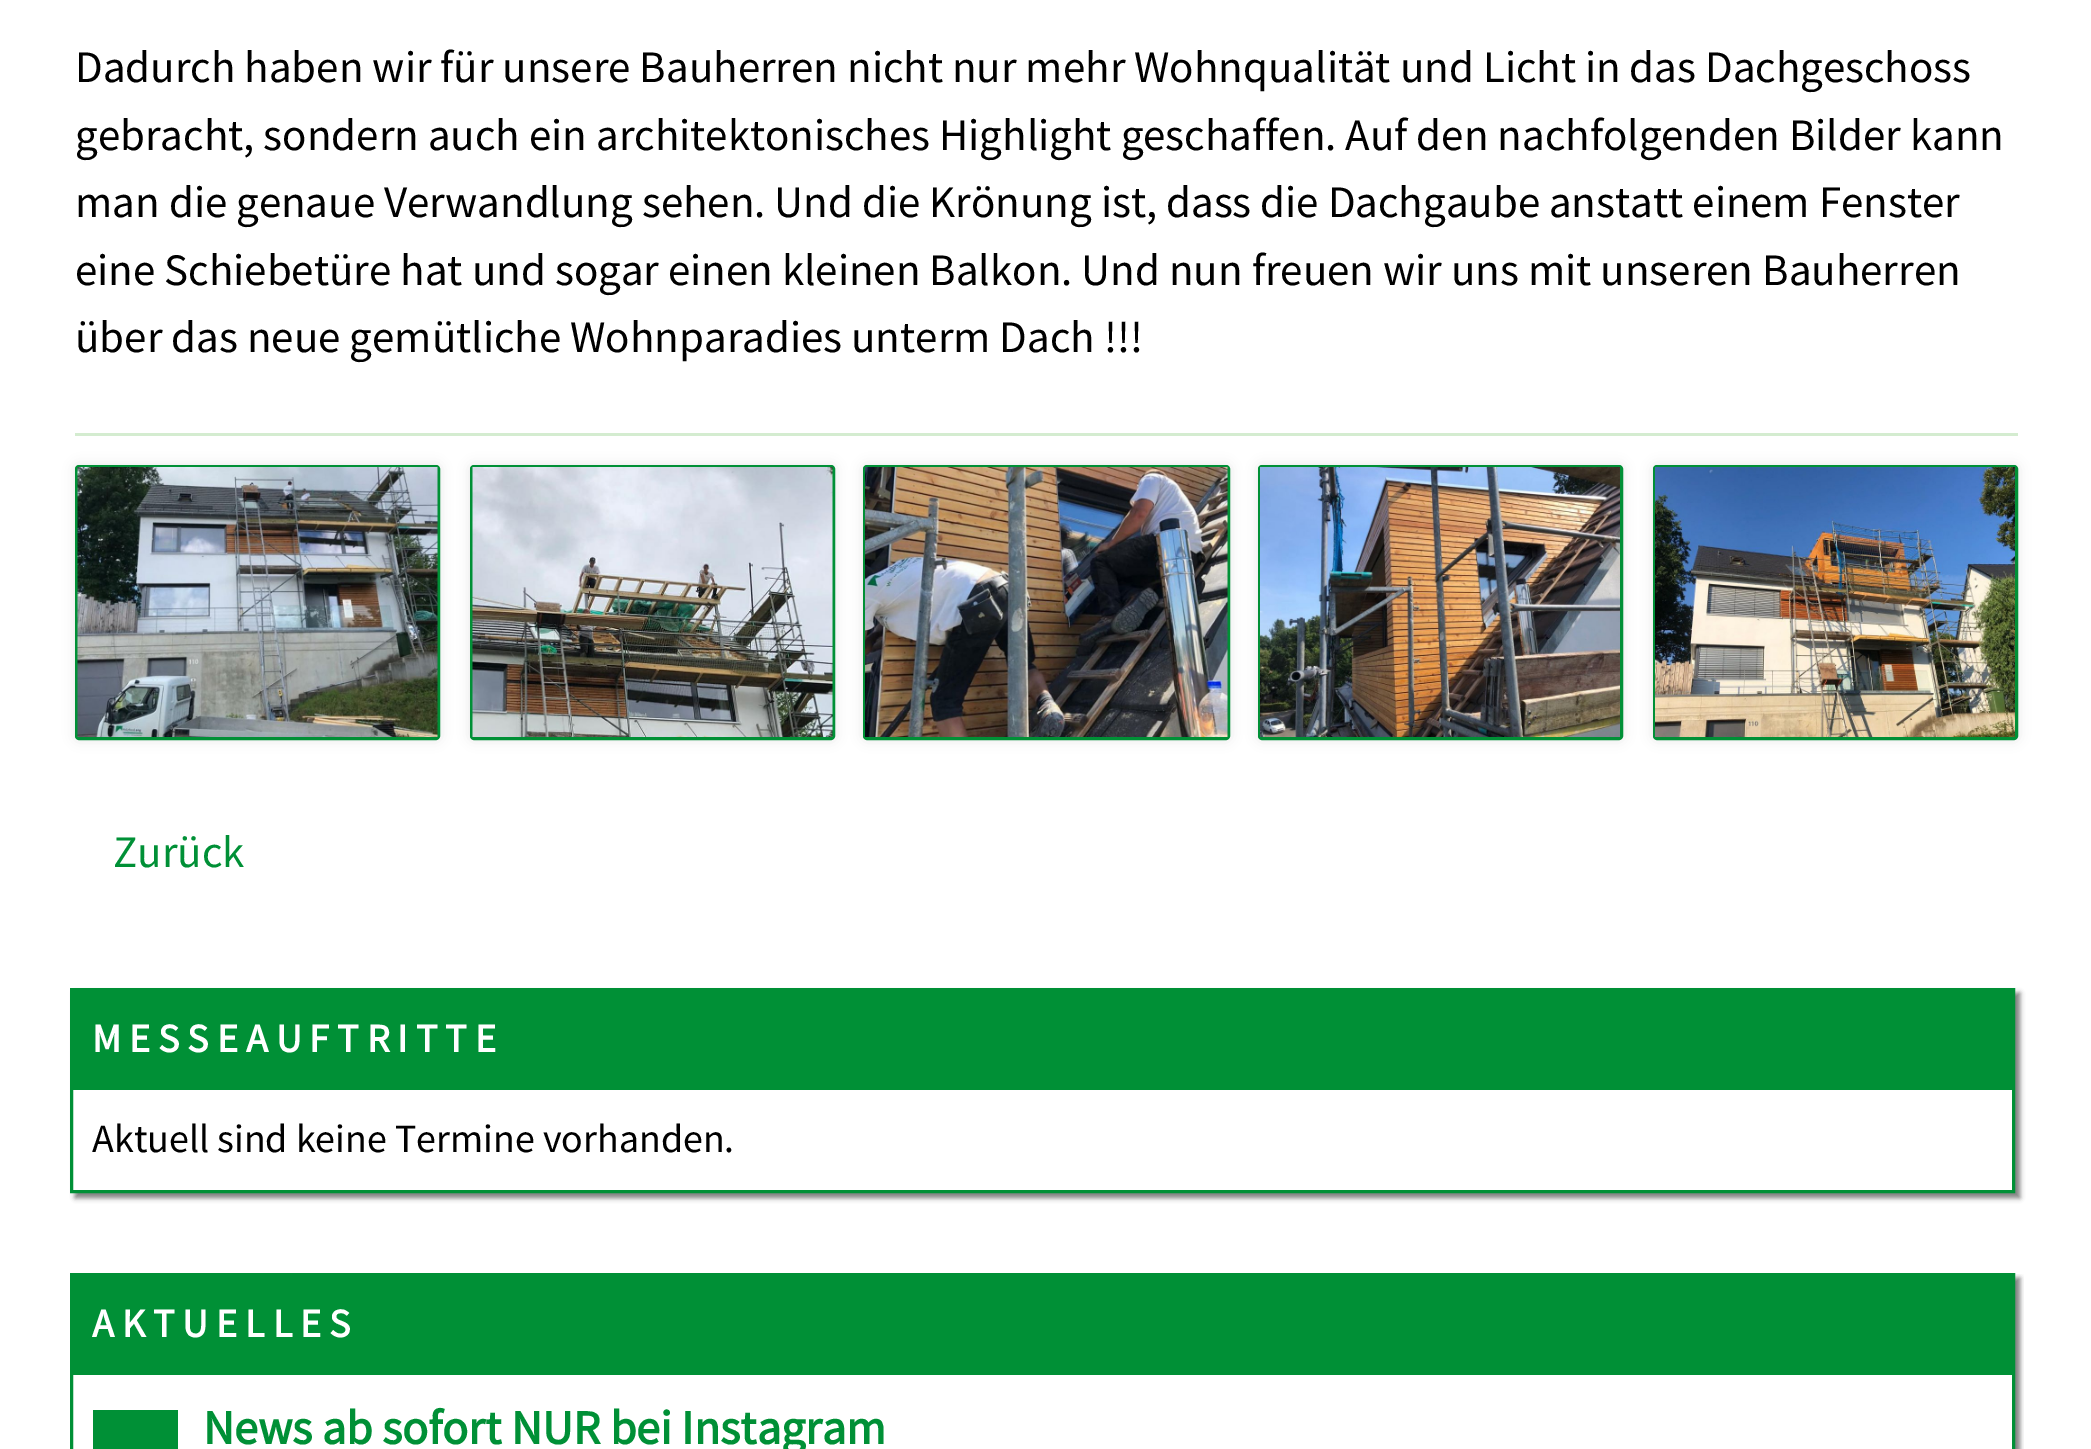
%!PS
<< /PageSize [2091 1449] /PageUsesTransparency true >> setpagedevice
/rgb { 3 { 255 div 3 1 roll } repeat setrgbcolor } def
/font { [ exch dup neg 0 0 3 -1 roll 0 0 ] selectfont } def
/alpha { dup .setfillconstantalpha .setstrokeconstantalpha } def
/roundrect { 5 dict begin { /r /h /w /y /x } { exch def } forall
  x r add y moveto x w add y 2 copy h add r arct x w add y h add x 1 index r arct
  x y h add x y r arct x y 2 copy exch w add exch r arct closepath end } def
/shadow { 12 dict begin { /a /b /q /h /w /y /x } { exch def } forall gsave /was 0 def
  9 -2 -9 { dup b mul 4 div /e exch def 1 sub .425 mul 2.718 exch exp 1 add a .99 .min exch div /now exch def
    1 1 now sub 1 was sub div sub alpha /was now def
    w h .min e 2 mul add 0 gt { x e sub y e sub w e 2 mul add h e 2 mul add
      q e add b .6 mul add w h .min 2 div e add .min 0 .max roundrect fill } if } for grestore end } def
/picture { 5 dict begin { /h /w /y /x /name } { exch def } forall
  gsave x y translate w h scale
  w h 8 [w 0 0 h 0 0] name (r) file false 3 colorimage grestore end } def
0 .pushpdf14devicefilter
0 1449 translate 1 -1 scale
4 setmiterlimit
255 255 255 rgb
0 0 2091 1449 rectfill
212 236 208 rgb
75 433 1943 3 rectfill
0 0 0 rgb
75 465 365 275 4 6 0.1 shadow
0 144 54 rgb
3 setlinewidth
76.5 466.5 362 272 2.5 roundrect stroke
(img/1.rgb) 77 467 361 270 picture
0 0 0 rgb
470 465 365 275 4 6 0.1 shadow
0 144 54 rgb
471.5 466.5 362 272 2.5 roundrect stroke
(img/2.rgb) 472 467 361 270 picture
0 0 0 rgb
863 465 367 275 4 6 0.1 shadow
0 144 54 rgb
864.5 466.5 364 272 2.5 roundrect stroke
(img/3.rgb) 865 467 363 270 picture
0 0 0 rgb
1258 465 365 275 4 6 0.1 shadow
0 144 54 rgb
1259.5 466.5 362 272 2.5 roundrect stroke
(img/4.rgb) 1260 467 360 270 picture
0 0 0 rgb
1653 465 365 275 4 6 0.1 shadow
0 144 54 rgb
1654.5 466.5 362 272 2.5 roundrect stroke
(img/5.rgb) 1655 467 360 270 picture
gsave
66 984 moveto 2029 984 lineto 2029 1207 lineto 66 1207 lineto closepath 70 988 moveto 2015 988 lineto 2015 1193 lineto 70 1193 lineto closepath eoclip newpath
0 0 0 rgb
75 993 1945 205 0 2.5 0.5 shadow
grestore
71.5 989.5 1942 202 rectstroke
73 991 1939 99 rectfill
gsave
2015 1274 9 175 rectclip
0 0 0 rgb
75 1278 1945 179 0 2.5 0.5 shadow
grestore
71.5 1274.5 1942 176 rectstroke
73 1276 1939 99 rectfill
93 1410 85 39 rectfill
/SourceSansPro-Regular 45 font
0 0 0 rgb
[
  [(Dadurch haben wir für unsere Bauherren nicht nur mehr Wohnqualität und Licht in das Dachgeschoss) 75 82]
  [(gebracht, sondern auch ein architektonisches Highlight geschaffen. Auf den nachfolgenden Bilder kann) 75 150]
  [(man die genaue Verwandlung sehen. Und die Krönung ist, dass die Dachgaube anstatt einem Fenster) 75 217]
  [(eine Schiebetüre hat und sogar einen kleinen Balkon. Und nun freuen wir uns mit unseren Bauherren) 75 285]
  [(über das neue gemütliche Wohnparadies unterm Dach !!!) 75 352]
] { aload pop moveto show } forall
0 144 54 rgb
113 867 moveto (Zurück) show
/SourceSansPro-Bold 40 font
255 255 255 rgb
92 1052 moveto 8 0 (MESSEAUFTRITTE) ashow
/SourceSansPro-Regular 40 font
0 0 0 rgb
92 1152 moveto (Aktuell sind keine Termine vorhanden.) show
/SourceSansPro-Bold 40 font
255 255 255 rgb
92 1337 moveto 8 0 (AKTUELLES) ashow
/SourceSansPro-Bold 48 font
0 144 54 rgb
203 1444 moveto (News ab sofort NUR bei Instagram) show
.poppdf14devicefilter showpage
